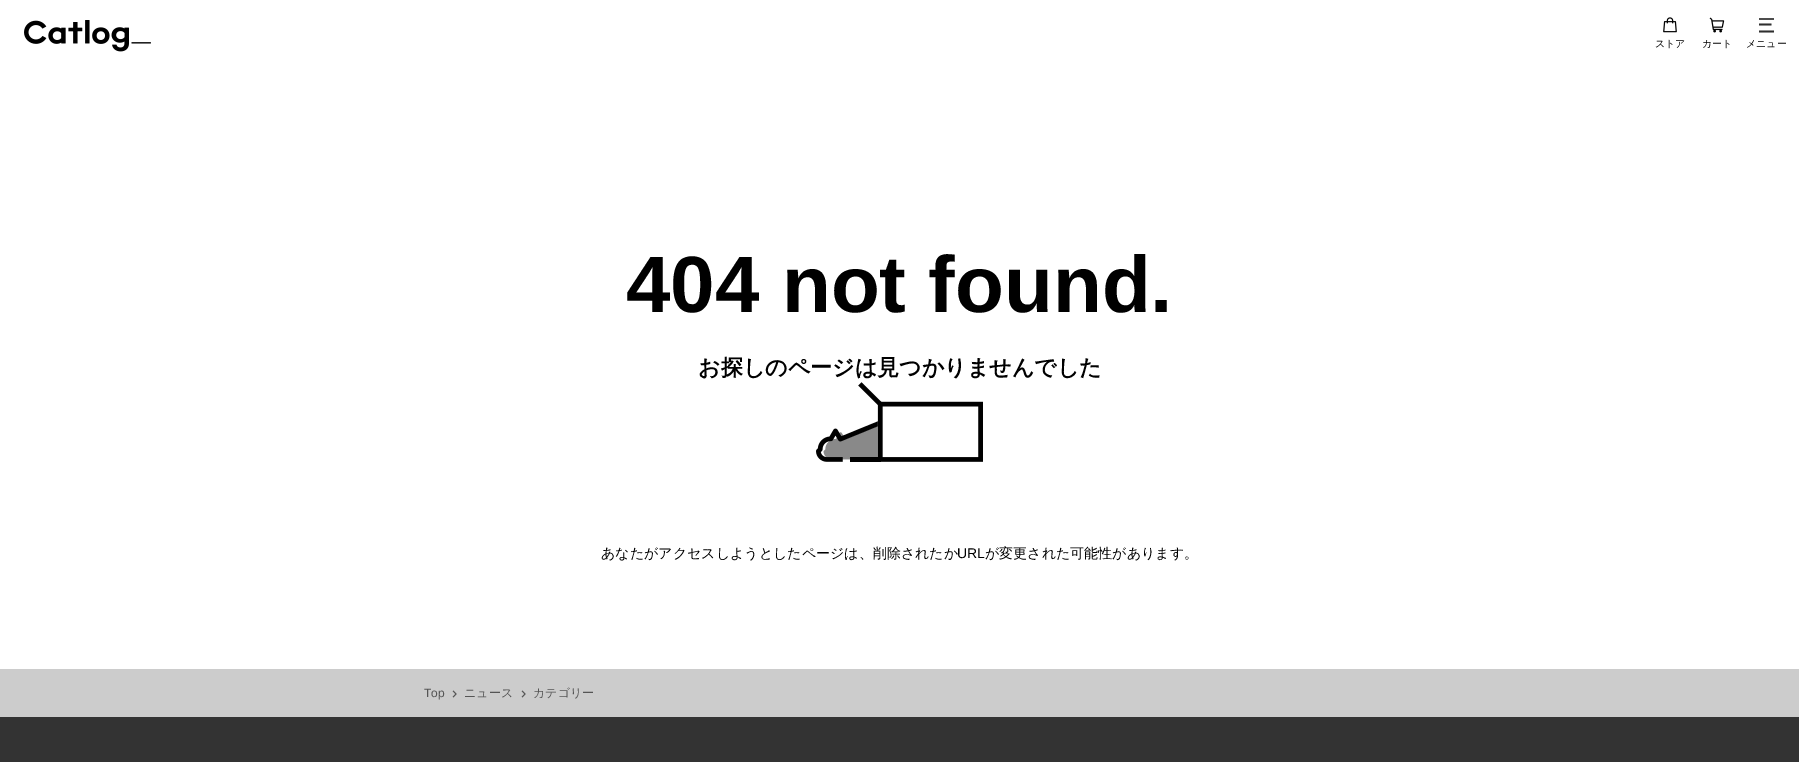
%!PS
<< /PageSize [1799 762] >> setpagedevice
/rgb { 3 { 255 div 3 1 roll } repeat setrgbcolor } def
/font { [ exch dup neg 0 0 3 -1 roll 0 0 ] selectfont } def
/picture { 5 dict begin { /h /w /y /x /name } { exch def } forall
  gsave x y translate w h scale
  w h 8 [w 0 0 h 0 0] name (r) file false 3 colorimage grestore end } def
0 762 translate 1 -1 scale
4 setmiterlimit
255 255 255 rgb
0 0 1799 762 rectfill
(img/1.rgb) 24 20 127 32 picture
(img/2.rgb) 1663 17 14 16 picture
(img/3.rgb) 1709 17 16 16 picture
77 77 77 rgb
1759 18 15 2 rectfill
46 46 46 rgb
1.7 setlinewidth
1759 24.5 moveto 1771.5 24.5 lineto 1759 31.5 moveto 1774 31.5 lineto stroke
(img/4.rgb) 816 382 167 80 picture
51 51 51 rgb
0 717 1799 45 rectfill
204 204 204 rgb
0 669 1799 48 rectfill
(img/5.rgb) 452 690 5 8 picture
(img/5.rgb) 521 690 5 8 picture
/WenQuanYiZenHei-Medium 10 font
0 0 0 rgb
[
  [(ストア) 1655 47]
  [(カート) 1702 47]
  [(メニュー) 1746 47]
] { aload pop moveto show } forall
/LiberationSans-Bold 80 font
626 312 moveto (404 not found.) show
/WenQuanYiZenHei-Bold 22 font
698 375 moveto (お探しのページは見つかりませんでした) show
/WenQuanYiZenHei-Medium 14 font
601 558 moveto (あなたがアクセスしようとしたページは、削除されたか) show
/LiberationSans-Regular 14 font
957 558 moveto (URL) show
/WenQuanYiZenHei-Medium 14 font
985 558 moveto (が変更された可能性があります。) show
/LiberationSans-Regular 12 font
85 85 85 rgb
424 697 moveto (Top) show
/WenQuanYiZenHei-Medium 12 font
464 697 moveto (ニュース) show
533 697 moveto (カテゴリー) show
showpage
